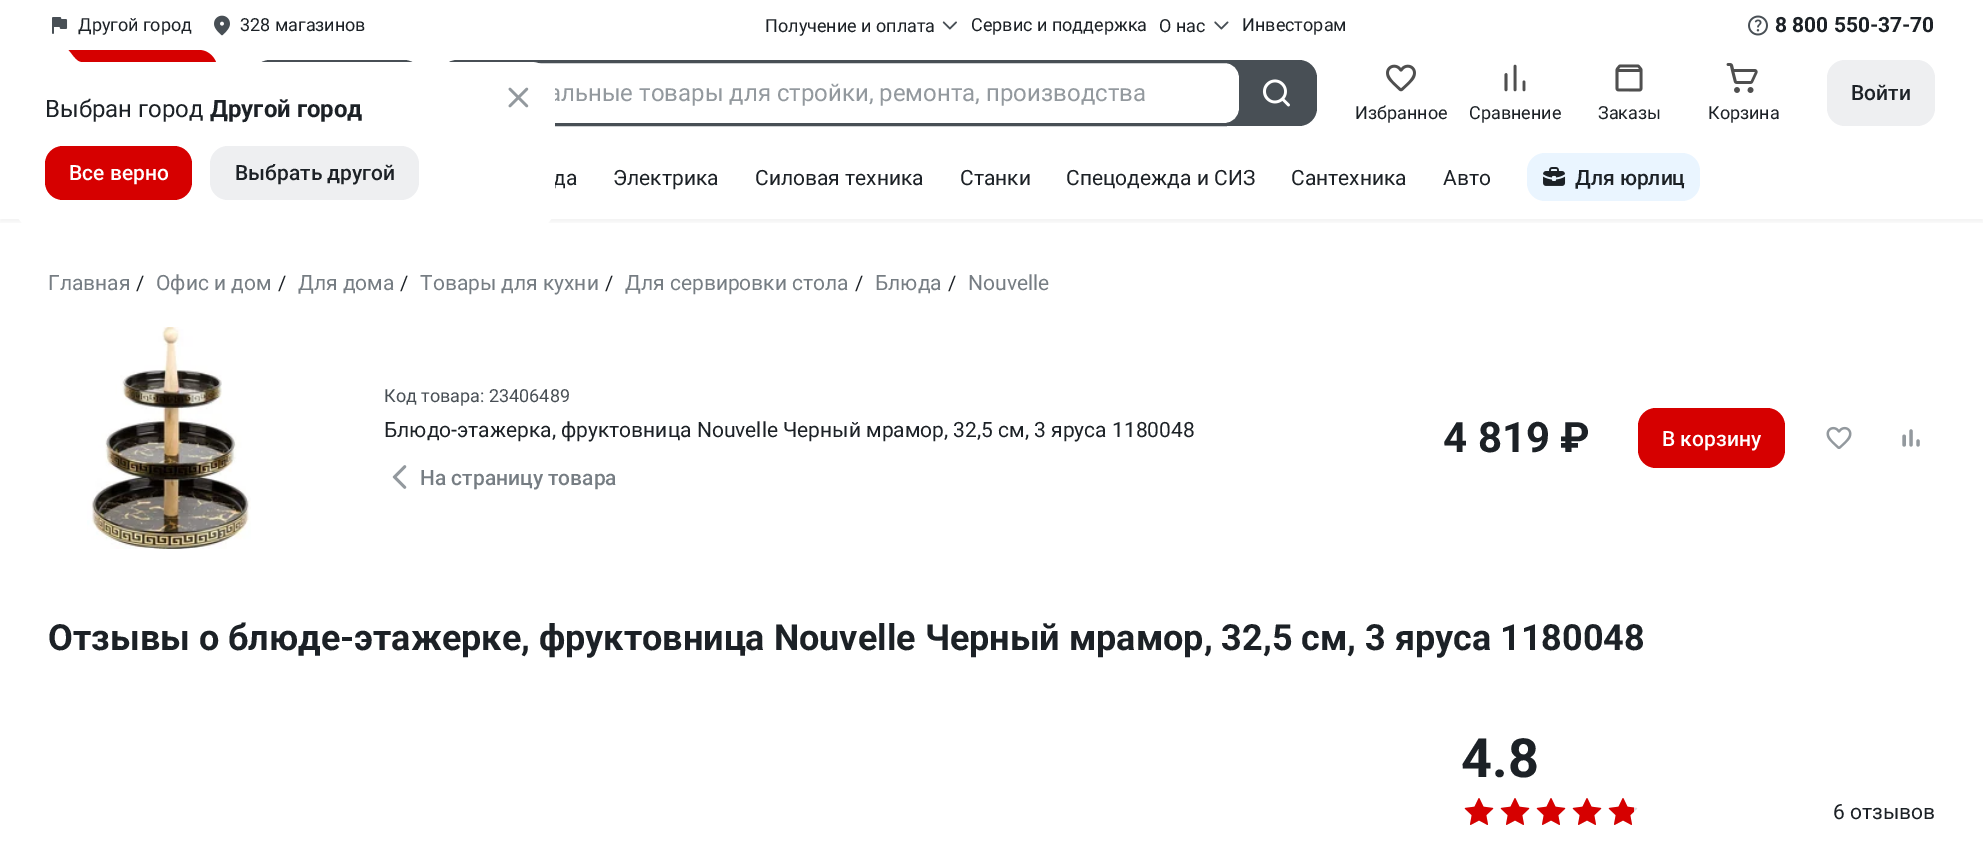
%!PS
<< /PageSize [1983 846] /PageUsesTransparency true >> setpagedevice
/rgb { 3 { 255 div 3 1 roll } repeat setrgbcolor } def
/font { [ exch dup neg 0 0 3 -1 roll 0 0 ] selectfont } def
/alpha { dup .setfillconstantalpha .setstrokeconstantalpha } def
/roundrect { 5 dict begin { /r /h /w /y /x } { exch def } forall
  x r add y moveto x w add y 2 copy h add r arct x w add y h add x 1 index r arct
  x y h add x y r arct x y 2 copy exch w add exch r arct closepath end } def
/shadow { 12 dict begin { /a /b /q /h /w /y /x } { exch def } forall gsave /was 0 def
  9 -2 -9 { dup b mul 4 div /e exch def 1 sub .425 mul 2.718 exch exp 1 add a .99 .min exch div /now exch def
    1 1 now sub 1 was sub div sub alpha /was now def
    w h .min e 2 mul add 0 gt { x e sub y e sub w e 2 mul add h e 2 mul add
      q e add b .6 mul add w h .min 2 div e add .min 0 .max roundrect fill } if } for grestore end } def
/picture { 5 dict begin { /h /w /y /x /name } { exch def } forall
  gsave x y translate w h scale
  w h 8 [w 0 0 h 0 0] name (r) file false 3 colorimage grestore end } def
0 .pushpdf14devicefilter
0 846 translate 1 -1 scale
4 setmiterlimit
255 255 255 rgb
0 0 1983 846 rectfill
(img/1.rgb) 52 17 16 17 picture
(img/2.rgb) 214 15 16 21 picture
(img/3.rgb) 942 21 15 9 picture
(img/4.rgb) 1214 21 15 9 picture
(img/5.rgb) 1748 15 20 21 picture
(img/6.rgb) 68 50 148 12 picture
72 79 85 rgb
252 60 170 66 18 roundrect fill
1212 60 105 66 18 roundrect fill
255 255 255 rgb
441.5 61.5 799 63 15.5 roundrect gsave fill grestore
72 79 85 rgb
3 setlinewidth
stroke
(img/7.rgb) 1262 79 28 28 picture
238 239 241 rgb
1827 60 108 66 18 roundrect fill
(img/8.rgb) 1386 64 30 28 picture
(img/9.rgb) 1504 64 22 28 picture
(img/10.rgb) 1615 64 28 28 picture
(img/11.rgb) 1726 63 32 30 picture
gsave
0 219 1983 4 rectclip
0 0 0 rgb
0 150 1983 72 0 3 0.05 shadow
grestore
234 245 255 rgb
1527 153 173 48 18 roundrect fill
(img/12.rgb) 1543 167 23 19 picture
(img/13.rgb) 87 327 164 222 picture
(img/14.rgb) 392 465 15 24 picture
214 0 0 rgb
1638 408 147 60 18 roundrect fill
(img/15.rgb) 1826 426 26 23 picture
(img/16.rgb) 1902 429 18 18 picture
(img/17.rgb) 1464 798 30 27 picture
(img/17.rgb) 1500 798 30 27 picture
(img/17.rgb) 1536 798 30 27 picture
(img/17.rgb) 1572 798 30 27 picture
(img/17.rgb) 1608 798 30 27 picture
(img/18.rgb) 1464 798 30 27 picture
(img/18.rgb) 1500 798 30 27 picture
(img/18.rgb) 1536 798 30 27 picture
(img/18.rgb) 1572 798 30 27 picture
(img/19.rgb) 1608 798 26 27 picture
255 255 255 rgb
56 46 moveto 43 59 lineto 42 61 41 62 39 62 curveto 81 62 lineto 73 62 64 36 56 46 curveto closepath fill
/Roboto-Regular 18 font
28 33 38 rgb
[
  [(Другой город) 78 31]
  [(328 магазинов) 240 31]
  [(Получение и оплата) 765 32]
  [(Сервис и поддержка) 971 31]
  [(О нас) 1159 32]
  [(Инвесторам) 1242 31]
] { aload pop moveto show } forall
/Roboto-Bold 21 font
1775 32 moveto (8 800 550-37-70) show
/Roboto-Regular 24 font
147 153 158 rgb
548 101 moveto (альные товары для стройки, ремонта, производства) show
/Roboto-Medium 21 font
28 33 38 rgb
1851 100 moveto (Войти) show
/Roboto-Regular 18 font
[
  [(Избранное) 1355 119]
  [(Сравнение) 1469 119]
  [(Заказы) 1598 119]
  [(Корзина) 1708 119]
] { aload pop moveto show } forall
/Roboto-Regular 21 font
[
  [(да) 553 185]
  [(Электрика) 613 185]
  [(Силовая техника) 755 185]
  [(Станки) 960 185]
  [(Спецодежда и СИЗ) 1066 185]
  [(Сантехника) 1291 185]
  [(Авто) 1443 185]
] { aload pop moveto show } forall
/Roboto-Medium 21 font
1575 185 moveto (Для юрлиц) show
/Roboto-Regular 21 font
118 125 131 rgb
48 290 moveto (Главная) show
/Roboto-Regular 20 font
28 33 38 rgb
136 290 moveto (/) show
/Roboto-Regular 21 font
118 125 131 rgb
156 290 moveto (Офис и дом) show
/Roboto-Regular 20 font
28 33 38 rgb
278 290 moveto (/) show
/Roboto-Regular 21 font
118 125 131 rgb
298 290 moveto (Для дома) show
/Roboto-Regular 20 font
28 33 38 rgb
400 290 moveto (/) show
/Roboto-Regular 21 font
118 125 131 rgb
420 290 moveto (Товары для кухни) show
/Roboto-Regular 20 font
28 33 38 rgb
605 290 moveto (/) show
/Roboto-Regular 21 font
118 125 131 rgb
625 290 moveto (Для сервировки стола) show
/Roboto-Regular 20 font
28 33 38 rgb
855 290 moveto (/) show
/Roboto-Regular 21 font
118 125 131 rgb
875 290 moveto (Блюда) show
/Roboto-Regular 20 font
28 33 38 rgb
948 290 moveto (/) show
/Roboto-Regular 21 font
118 125 131 rgb
968 290 moveto (Nouvelle) show
/Roboto-Regular 18 font
72 79 85 rgb
384 402 moveto (Код товара: 23406489) show
/Roboto-Regular 21 font
28 33 38 rgb
384 437 moveto (Блюдо-этажерка, фруктовница Nouvelle Черный мрамор, 32,5 см, 3 яруса 1180048) show
/Roboto-Medium 21 font
118 125 131 rgb
420 485 moveto (На страницу товара) show
/Roboto-Bold 42 font
28 33 38 rgb
1443 452 moveto (4 819 ₽) show
/Roboto-Medium 21 font
255 255 255 rgb
1662 446 moveto (В корзину) show
/Roboto-Bold 36 font
28 33 38 rgb
48 650 moveto (Отзывы о блюде-этажерке, фруктовница Nouvelle Черный мрамор, 32,5 см, 3 яруса 1180048) show
/Roboto-Bold 54 font
1461 777 moveto (4.8) show
/Roboto-Regular 21 font
1833 819 moveto (6 отзывов) show
255 255 255 rgb
15 62 540 168 24 roundrect fill
/Roboto-Regular 24 font
28 33 38 rgb
45 117 moveto (Выбран город) show
/Roboto-Bold 24 font
210 117 moveto (Другой город) show
214 0 0 rgb
45 146 147 54 18 roundrect fill
/Roboto-Medium 21 font
255 255 255 rgb
69 180 moveto (Все верно) show
238 239 241 rgb
210 146 209 54 18 roundrect fill
28 33 38 rgb
235 180 moveto (Выбрать другой) show
(img/20.rgb) 508 87 21 21 picture
.poppdf14devicefilter showpage
